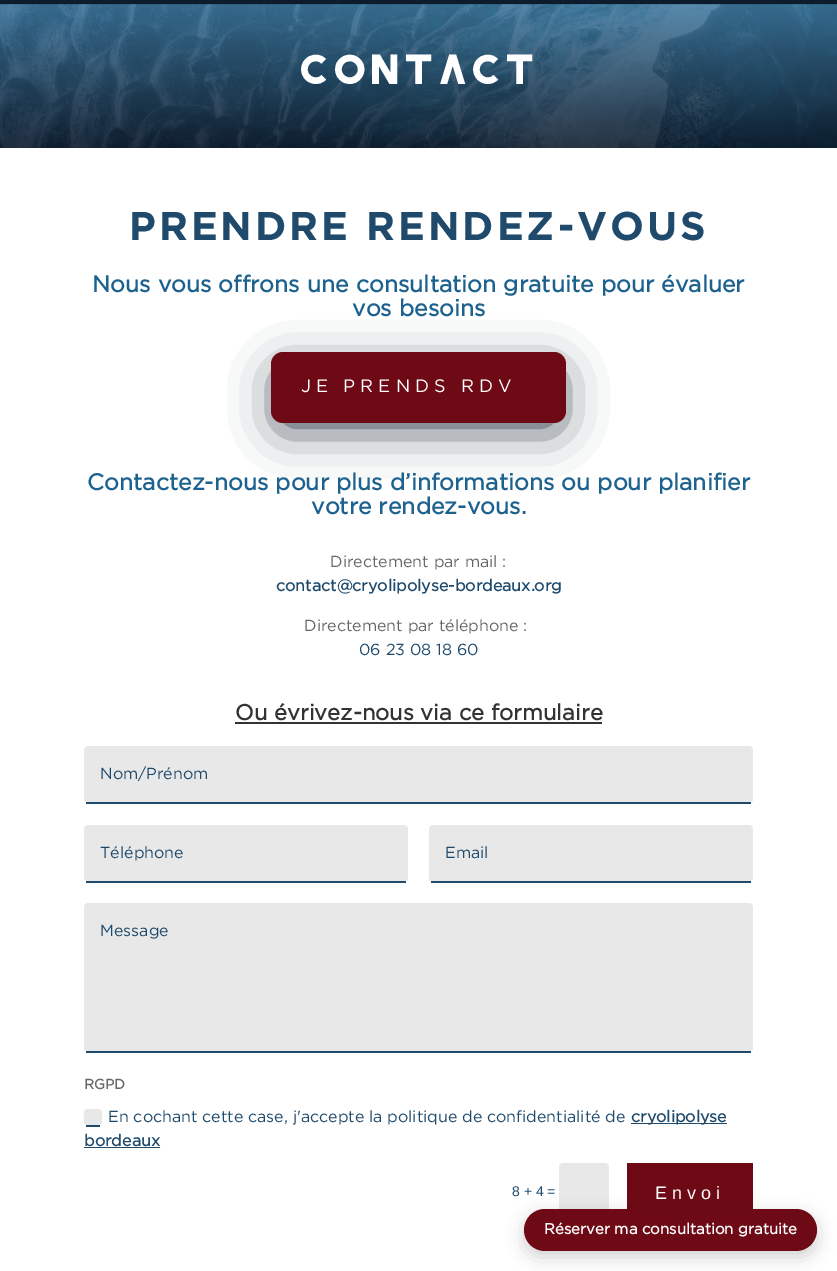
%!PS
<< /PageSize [837 1271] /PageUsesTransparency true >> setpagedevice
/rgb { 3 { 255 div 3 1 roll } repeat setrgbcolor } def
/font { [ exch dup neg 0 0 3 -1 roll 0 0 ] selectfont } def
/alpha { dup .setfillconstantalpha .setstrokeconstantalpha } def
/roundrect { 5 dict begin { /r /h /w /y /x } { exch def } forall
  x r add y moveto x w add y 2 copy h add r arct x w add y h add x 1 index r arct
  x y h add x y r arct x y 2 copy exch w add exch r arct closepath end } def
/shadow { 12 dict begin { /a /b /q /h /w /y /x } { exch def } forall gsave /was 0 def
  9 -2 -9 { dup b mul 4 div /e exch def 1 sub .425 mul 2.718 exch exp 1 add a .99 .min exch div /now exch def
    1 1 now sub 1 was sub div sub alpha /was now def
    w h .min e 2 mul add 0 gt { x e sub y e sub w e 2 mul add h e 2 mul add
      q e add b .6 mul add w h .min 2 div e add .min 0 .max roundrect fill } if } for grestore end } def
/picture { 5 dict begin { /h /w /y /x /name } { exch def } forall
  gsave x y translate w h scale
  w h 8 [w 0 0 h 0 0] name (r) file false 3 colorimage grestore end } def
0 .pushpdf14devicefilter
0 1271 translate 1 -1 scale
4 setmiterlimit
255 255 255 rgb
0 0 837 1271 rectfill
(img/1.rgb) 0 4 837 144 picture
0.1 alpha
0 0 0 rgb
0 4 837 1 rectfill
1 alpha
13 28 45 rgb
0 0 837 4 rectfill
283 376 271 47 0 25 1 shadow
109 10 21 rgb
271 352 295 71 12 roundrect fill
51 51 51 rgb
235 722 367 2 rectfill
232 232 232 rgb
88 746 moveto 749 746 lineto 751 746 753 748 753 750 curveto 753 800 lineto 753 801 751 802 749 802 curveto 88 802 lineto 86 802 84 801 84 800 curveto 84 750 lineto 84 748 86 746 88 746 curveto closepath fill
31 74 108 rgb
86 802 665 2 rectfill
232 232 232 rgb
88 825 moveto 404 825 lineto 406 825 408 827 408 829 curveto 408 879 lineto 408 880 406 881 404 881 curveto 88 881 lineto 86 881 84 880 84 879 curveto 84 829 lineto 84 827 86 825 88 825 curveto closepath fill
31 74 108 rgb
86 881 320 2 rectfill
232 232 232 rgb
433 825 moveto 749 825 lineto 751 825 753 827 753 829 curveto 753 879 lineto 753 880 751 881 749 881 curveto 433 881 lineto 431 881 429 880 429 879 curveto 429 829 lineto 429 827 431 825 433 825 curveto closepath fill
31 74 108 rgb
431 881 320 2 rectfill
232 232 232 rgb
88 903 moveto 749 903 lineto 751 903 753 905 753 907 curveto 753 1049 lineto 753 1050 751 1051 749 1051 curveto 88 1051 lineto 86 1051 84 1050 84 1049 curveto 84 907 lineto 84 905 86 903 88 903 curveto closepath fill
31 74 108 rgb
86 1051 665 2 rectfill
232 232 232 rgb
88 1109 moveto 94.5 1109 lineto 97.5 1109 101 1108.5 102 1112 curveto 102 1123.5 lineto 101 1126 90 1125 88 1125 curveto 83 1125 84 1122 84 1118 curveto 84 1115 83 1109 88 1109 curveto closepath fill
[
  [86 1125 14 2 31 74 108]
  [631 1123 96 1 31 74 108]
  [84 1147 76 1 31 74 108]
] { aload pop rgb rectfill } forall
232 232 232 rgb
563 1163 moveto 605 1163 lineto 607 1163 609 1165 609 1167 curveto 609 1217 lineto 609 1218 607 1219 605 1219 curveto 563 1219 lineto 561 1219 559 1218 559 1217 curveto 559 1167 lineto 559 1165 561 1163 563 1163 curveto closepath fill
109 10 21 rgb
627 1163 126 46 rectfill
0 0 0 rgb
524 1215 293 42 21 9 0.18 shadow
109 10 21 rgb
524 1209 293 42 21 roundrect fill
/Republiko-Regular 42 font
255 255 255 rgb
299 84 moveto 4.25 0 (CONTACT) ashow
/Gotham-Bold 40 font
31 74 108 rgb
129 240 moveto 3 0 (PRENDRE RENDEZ-VOUS) ashow
/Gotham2-Bold 23 font
29 98 142 rgb
92 292 moveto (Nous vous offrons une consultation gratuite pour évaluer) show
352 316 moveto (vos besoins) show
/Gotham-Regular 18 font
255 255 255 rgb
301 392 moveto 5 0 (JE PRENDS RDV) ashow
/Gotham2-Bold 23 font
29 98 142 rgb
87 490 moveto (Contactez-nous pour plus d’informations ou pour planifier) show
311 514 moveto (votre rendez-vous.) show
/Gotham-Regular 16 font
102 102 102 rgb
330 567 moveto (Directement par mail :) show
/Gotham2-Bold 16 font
31 74 108 rgb
276 591 moveto (contact@cryolipolyse-bordeaux.org) show
/Gotham-Regular 16 font
102 102 102 rgb
304 631 moveto (Directement par téléphone :) show
31 74 108 rgb
359 655 moveto (06 23 08 18 60) show
/Gotham2-Bold 22 font
51 51 51 rgb
235 720 moveto (Ou évrivez-nous via ce formulaire) show
/Gotham-Regular 16 font
31 74 108 rgb
[
  [(Nom/Prénom) 100 779]
  [(Téléphone) 100 858]
  [(Email) 445 858]
  [(Message) 100 936]
] { aload pop moveto show } forall
/Gotham2-Bold 14 font
102 102 102 rgb
84 1089 moveto (RGPD) show
/Gotham-Regular 16 font
31 74 108 rgb
108 1122 moveto (En cochant cette case, j'accepte la politique de confidentialité de) show
/Gotham2-Bold 16 font
631 1122 moveto (cryolipolyse) show
84 1146 moveto (bordeaux) show
/LiberationSans-Regular 14 font
512 1196 moveto (8 + 4 =) show
/LiberationSans-Regular 18 font
255 255 255 rgb
655 1199 moveto 5 0 (Envoi) ashow
/Gotham2-Bold 15 font
544 1234 moveto (Réserver ma consultation gratuite) show
.poppdf14devicefilter showpage
